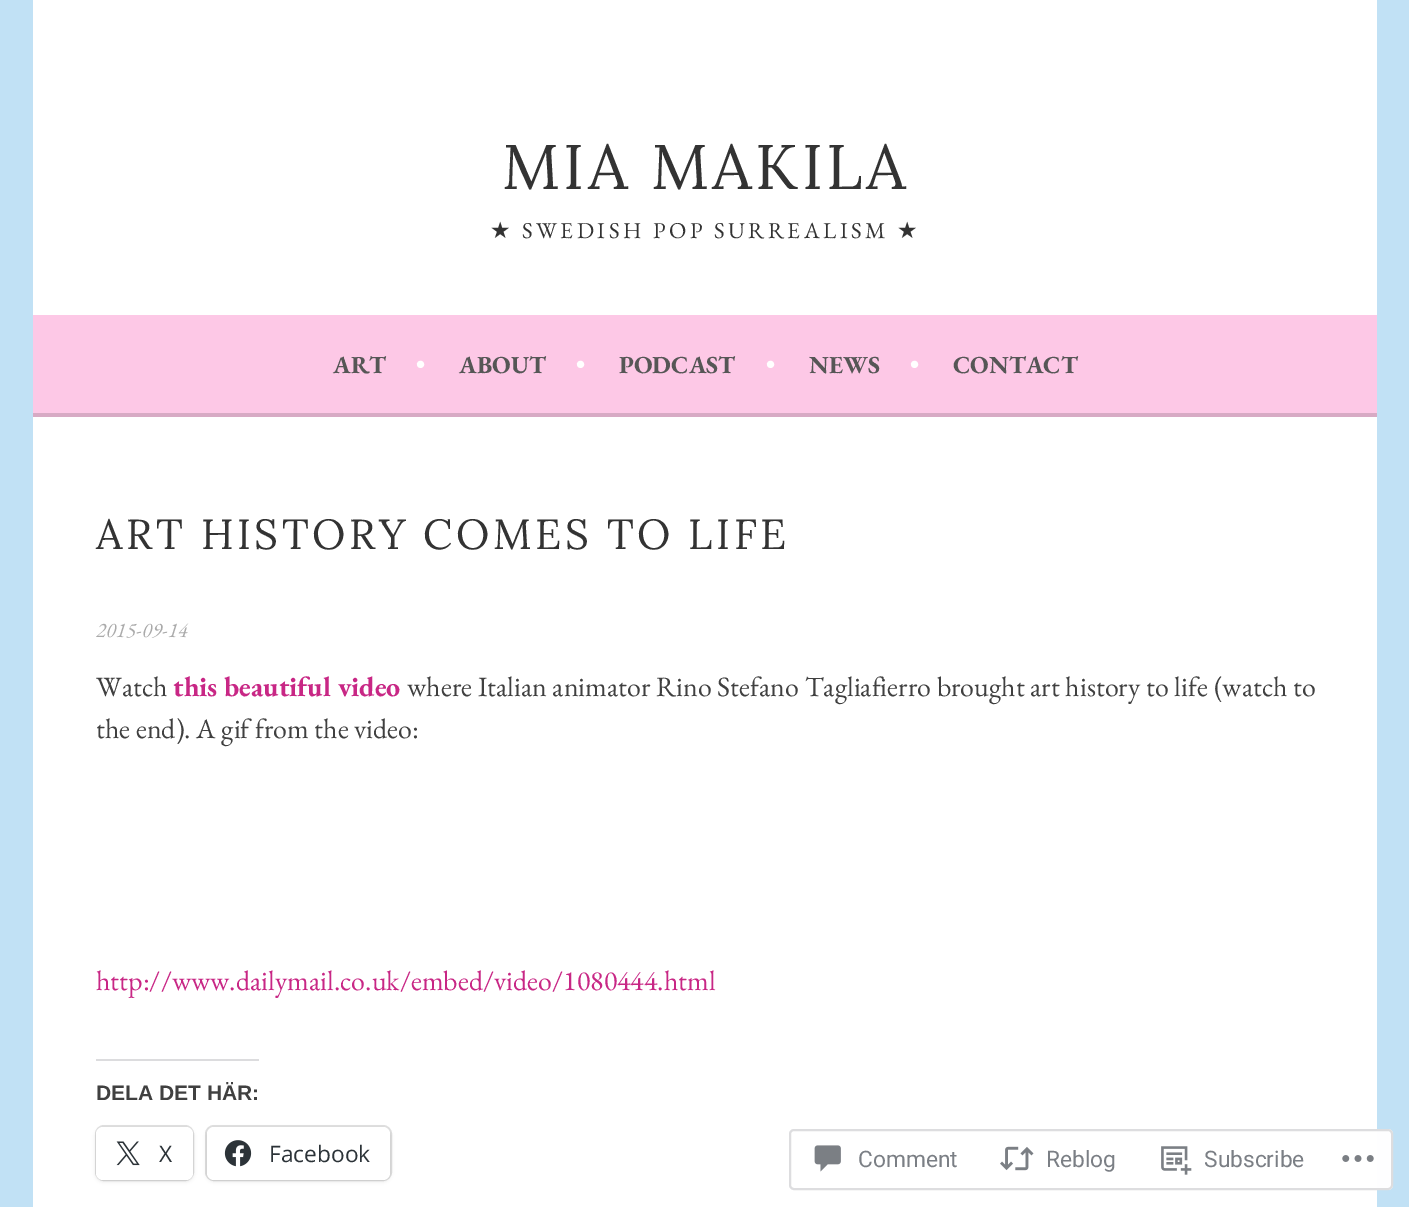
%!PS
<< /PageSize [1409 1207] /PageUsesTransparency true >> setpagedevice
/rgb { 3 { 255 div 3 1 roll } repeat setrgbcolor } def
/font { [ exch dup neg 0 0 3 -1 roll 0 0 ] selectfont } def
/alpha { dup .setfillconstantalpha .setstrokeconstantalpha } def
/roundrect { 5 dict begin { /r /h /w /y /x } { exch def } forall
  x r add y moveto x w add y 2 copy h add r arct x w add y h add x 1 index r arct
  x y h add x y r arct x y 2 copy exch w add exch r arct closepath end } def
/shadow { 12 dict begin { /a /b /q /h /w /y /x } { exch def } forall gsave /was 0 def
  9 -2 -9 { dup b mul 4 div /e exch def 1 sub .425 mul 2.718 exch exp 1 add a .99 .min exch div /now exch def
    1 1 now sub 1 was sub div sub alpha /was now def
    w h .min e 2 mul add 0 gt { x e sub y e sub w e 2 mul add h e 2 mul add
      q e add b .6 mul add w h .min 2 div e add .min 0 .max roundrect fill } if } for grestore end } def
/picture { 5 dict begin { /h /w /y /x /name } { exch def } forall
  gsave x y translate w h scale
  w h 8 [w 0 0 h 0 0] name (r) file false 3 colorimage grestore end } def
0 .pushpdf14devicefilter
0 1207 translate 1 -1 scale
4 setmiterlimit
193 225 245 rgb
0 0 1409 1207 rectfill
[
  [33 0 1344 315 255 255 255]
  [33 315 1344 98 253 200 230]
  [33 413 1344 4 215 170 196]
  [33 417 1344 790 255 255 255]
  [96 1059 163 2 220 220 222]
] { aload pop rgb rectfill } forall
224 224 224 rgb
2 setlinewidth
96 1126 97 54 8 roundrect stroke
0 0 0 rgb
96 1129 97 52 7 2 0.12 shadow
255 255 255 rgb
96 1127 97 53 7 roundrect fill
(img/1.rgb) 116 1141 24 25 picture
224 224 224 rgb
206 1126 185 54 8 roundrect stroke
0 0 0 rgb
207 1129 183 52 7 2 0.12 shadow
255 255 255 rgb
207 1127 183 53 7 roundrect fill
(img/2.rgb) 224 1140 28 27 picture
0.98 alpha
789 1129 604 61 5 roundrect fill
220 220 222 rgb
790 1130 602 59 4 roundrect stroke
1 alpha
(img/3.rgb) 814 1145 27 27 picture
(img/4.rgb) 1000 1146 34 25 picture
(img/5.rgb) 1161 1146 31 29 picture
(img/6.rgb) 1342 1155 32 7 picture
/Lora-Regular 63 font
51 51 51 rgb
502 189 moveto 3.5 0 (MIA MAKILA) ashow
/DejaVuSans-Regular 22.75 font
490 238 moveto 3.5 0 (★) ashow
/EBGaramond-Regular 22.75 font
522 238 moveto 3.5 0 (SWEDISH POP SURREALISM) ashow
/DejaVuSans-Regular 22.75 font
897 238 moveto 3.5 0 (★) ashow
/EBGaramond-Bold 24.5 font
86 86 86 rgb
333 373 moveto (ART) show
255 255 255 rgb
416 373 moveto (•) show
86 86 86 rgb
459 373 moveto (ABOUT) show
255 255 255 rgb
576 373 moveto (•) show
86 86 86 rgb
619 373 moveto (PODCAST) show
255 255 255 rgb
766 373 moveto (•) show
86 86 86 rgb
809 373 moveto (NEWS) show
255 255 255 rgb
910 373 moveto (•) show
86 86 86 rgb
953 373 moveto (CONTACT) show
/Lora-Regular 42 font
51 51 51 rgb
96 549 moveto 3.5 0 (ART HISTORY COMES TO LIFE) ashow
/EBGaramond-Italic 21 font
170 170 170 rgb
96 637 moveto (2015-09-14) show
/EBGaramond-Regular 28 font
64 64 64 rgb
96 696 moveto (Watch) show
/EBGaramond-Bold 28 font
200 39 133 rgb
173 696 moveto (this beautiful video) show
/EBGaramond-Regular 28 font
64 64 64 rgb
407 696 moveto 0.25 0 32 (where Italian animator Rino Stefano Tagliafierro brought art history to life \(watch to) widthshow
96 738 moveto (the end\). A gif from the video:) show
200 39 133 rgb
96 990 moveto (http://www.dailymail.co.uk/embed/video/1080444.html) show
/LiberationSans-Bold 21 font
64 64 64 rgb
96 1100 moveto (DELA DET HÄR:) show
/OpenSans-Regular 22.75 font
44 51 56 rgb
159 1162 moveto (X) show
269 1162 moveto (Facebook) show
/Roboto-Regular 22.75 font
123 127 133 rgb
[
  [(Comment) 858 1167]
  [(Reblog) 1046 1167]
  [(Subscribe) 1204 1167]
] { aload pop moveto show } forall
.poppdf14devicefilter showpage
